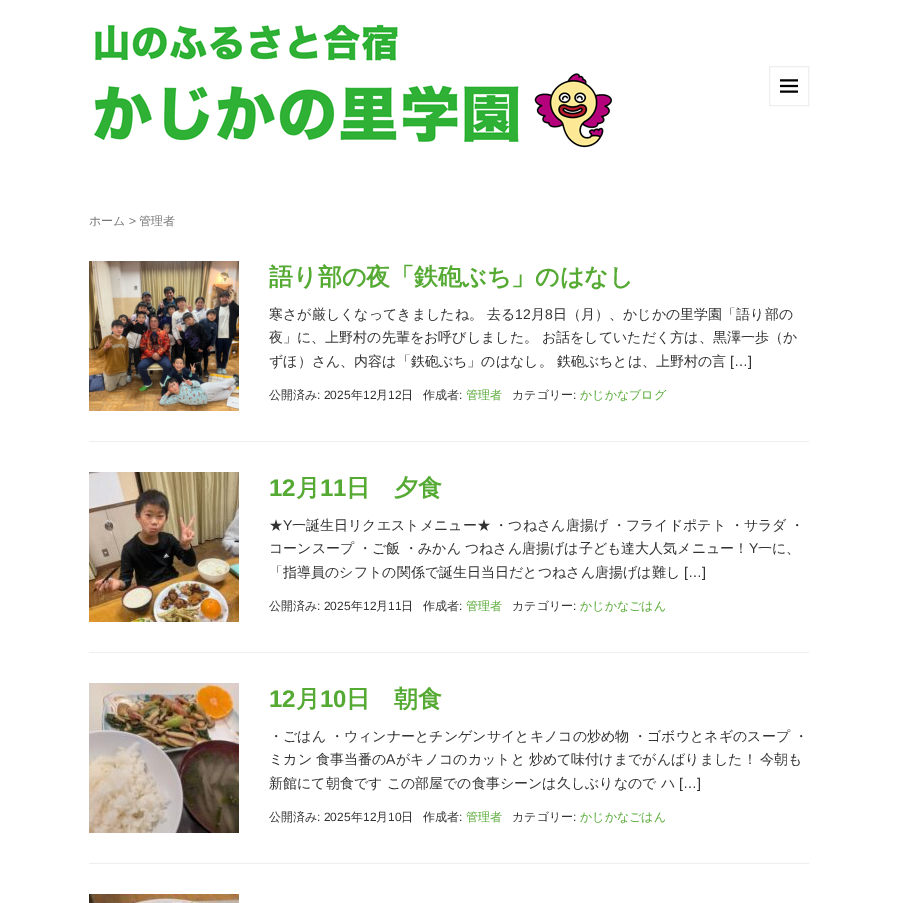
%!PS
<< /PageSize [898 903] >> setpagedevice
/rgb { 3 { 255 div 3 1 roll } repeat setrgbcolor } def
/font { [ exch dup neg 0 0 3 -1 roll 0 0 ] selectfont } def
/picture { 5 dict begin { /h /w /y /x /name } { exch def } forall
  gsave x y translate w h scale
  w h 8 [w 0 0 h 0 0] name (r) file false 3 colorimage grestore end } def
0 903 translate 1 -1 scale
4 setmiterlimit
255 255 255 rgb
0 0 898 903 rectfill
(img/1.rgb) 94 24 519 124 picture
238 238 238 rgb
769.5 66.5 39 39 rectstroke
(img/2.rgb) 780 79 18 14 picture
89 441 720 1 rectfill
(img/3.rgb) 89 261 150 150 picture
89 652 720 1 rectfill
(img/4.rgb) 89 472 150 150 picture
89 863 720 1 rectfill
(img/5.rgb) 89 683 150 150 picture
(img/6.rgb) 89 894 150 9 picture
/WenQuanYiZenHei-Medium 12 font
119 119 119 rgb
89 225 moveto (ホーム) show
/LiberationSans-Regular 12 font
129 225 moveto (>) show
/WenQuanYiZenHei-Medium 12 font
139 225 moveto (管理者) show
/WenQuanYiZenHei-Bold 24 font
85 170 51 rgb
269 285 moveto (語り部の夜「鉄砲ぶち」のはなし) show
/WenQuanYiZenHei-Medium 14 font
51 51 51 rgb
269 319 moveto -0.5 0 32 (寒さが厳しくなってきましたね。 去る) widthshow
/LiberationSans-Regular 14 font
515 319 moveto (12) show
/WenQuanYiZenHei-Medium 14 font
531 319 moveto (月) show
/LiberationSans-Regular 14 font
545 319 moveto (8) show
/WenQuanYiZenHei-Medium 14 font
553 319 moveto (日（月）、かじかの里学園「語り部の) show
269 342 moveto -0.5 0 32 (夜」に、上野村の先輩をお呼びしました。 お話をしていただく方は、黒澤一歩（か) widthshow
269 366 moveto (ずほ）さん、内容は「鉄砲ぶち」のはなし。 鉄砲ぶちとは、上野村の言) show
/LiberationSans-Regular 14 font
730 366 moveto ([…]) show
/WenQuanYiZenHei-Medium 12 font
269 399 moveto (公開済み) show
/LiberationSans-Regular 12 font
317 399 moveto (: 2025) show
/WenQuanYiZenHei-Medium 12 font
351 399 moveto (年) show
/LiberationSans-Regular 12 font
363 399 moveto (12) show
/WenQuanYiZenHei-Medium 12 font
376 399 moveto (月) show
/LiberationSans-Regular 12 font
388 399 moveto (12) show
/WenQuanYiZenHei-Medium 12 font
401 399 moveto (日) show
423 399 moveto (作成者) show
/LiberationSans-Regular 12 font
459 399 moveto (:) show
/WenQuanYiZenHei-Medium 12 font
85 170 51 rgb
466 399 moveto (管理者) show
51 51 51 rgb
512 399 moveto (カテゴリー) show
/LiberationSans-Regular 12 font
573 399 moveto (:) show
/WenQuanYiZenHei-Medium 12 font
85 170 51 rgb
580 399 moveto (かじかなブログ) show
/LiberationSans-Bold 24 font
269 496 moveto (12) show
/WenQuanYiZenHei-Bold 24 font
296 496 moveto (月) show
/LiberationSans-Bold 24 font
320 496 moveto (11) show
/WenQuanYiZenHei-Bold 24 font
346 496 moveto (日　夕食) show
/WenQuanYiZenHei-Medium 14 font
51 51 51 rgb
269 530 moveto (★) show
/LiberationSans-Regular 14 font
283 530 moveto (Y) show
/WenQuanYiZenHei-Medium 14 font
292 530 moveto -0.5 0 32 (一誕生日リクエストメニュー★ ・つねさん唐揚げ ・フライドポテト ・サラダ ・) widthshow
269 553 moveto -0.5 0 32 (コーンスープ ・ご飯 ・みかん つねさん唐揚げは子ども達大人気メニュー！) widthshow
/LiberationSans-Regular 14 font
749 553 moveto (Y) show
/WenQuanYiZenHei-Medium 14 font
758 553 moveto (一に、) show
269 577 moveto (「指導員のシフトの関係で誕生日当日だとつねさん唐揚げは難し) show
/LiberationSans-Regular 14 font
684 577 moveto ([…]) show
/WenQuanYiZenHei-Medium 12 font
269 610 moveto (公開済み) show
/LiberationSans-Regular 12 font
317 610 moveto (: 2025) show
/WenQuanYiZenHei-Medium 12 font
351 610 moveto (年) show
/LiberationSans-Regular 12 font
363 610 moveto (12) show
/WenQuanYiZenHei-Medium 12 font
376 610 moveto (月) show
/LiberationSans-Regular 12 font
388 610 moveto (11) show
/WenQuanYiZenHei-Medium 12 font
401 610 moveto (日) show
423 610 moveto (作成者) show
/LiberationSans-Regular 12 font
459 610 moveto (:) show
/WenQuanYiZenHei-Medium 12 font
85 170 51 rgb
466 610 moveto (管理者) show
51 51 51 rgb
512 610 moveto (カテゴリー) show
/LiberationSans-Regular 12 font
573 610 moveto (:) show
/WenQuanYiZenHei-Medium 12 font
85 170 51 rgb
580 610 moveto (かじかなごはん) show
/LiberationSans-Bold 24 font
269 707 moveto (12) show
/WenQuanYiZenHei-Bold 24 font
296 707 moveto (月) show
/LiberationSans-Bold 24 font
320 707 moveto (10) show
/WenQuanYiZenHei-Bold 24 font
346 707 moveto (日　朝食) show
/WenQuanYiZenHei-Medium 14 font
51 51 51 rgb
269 741 moveto -0.5 0 32 (・ごはん ・ウィンナーとチンゲンサイとキノコの炒め物 ・ゴボウとネギのスープ ・) widthshow
269 764 moveto -0.5 0 32 (ミカン 食事当番の) widthshow
/LiberationSans-Regular 14 font
386 764 moveto (A) show
/WenQuanYiZenHei-Medium 14 font
396 764 moveto -0.5 0 32 (がキノコのカットと 炒めて味付けまでがんばりました！ 今朝も) widthshow
269 788 moveto (新館にて朝食です この部屋での食事シーンは久しぶりなので ハ) show
/LiberationSans-Regular 14 font
679 788 moveto ([…]) show
/WenQuanYiZenHei-Medium 12 font
269 821 moveto (公開済み) show
/LiberationSans-Regular 12 font
317 821 moveto (: 2025) show
/WenQuanYiZenHei-Medium 12 font
351 821 moveto (年) show
/LiberationSans-Regular 12 font
363 821 moveto (12) show
/WenQuanYiZenHei-Medium 12 font
376 821 moveto (月) show
/LiberationSans-Regular 12 font
388 821 moveto (10) show
/WenQuanYiZenHei-Medium 12 font
401 821 moveto (日) show
423 821 moveto (作成者) show
/LiberationSans-Regular 12 font
459 821 moveto (:) show
/WenQuanYiZenHei-Medium 12 font
85 170 51 rgb
466 821 moveto (管理者) show
51 51 51 rgb
512 821 moveto (カテゴリー) show
/LiberationSans-Regular 12 font
573 821 moveto (:) show
/WenQuanYiZenHei-Medium 12 font
85 170 51 rgb
580 821 moveto (かじかなごはん) show
showpage
